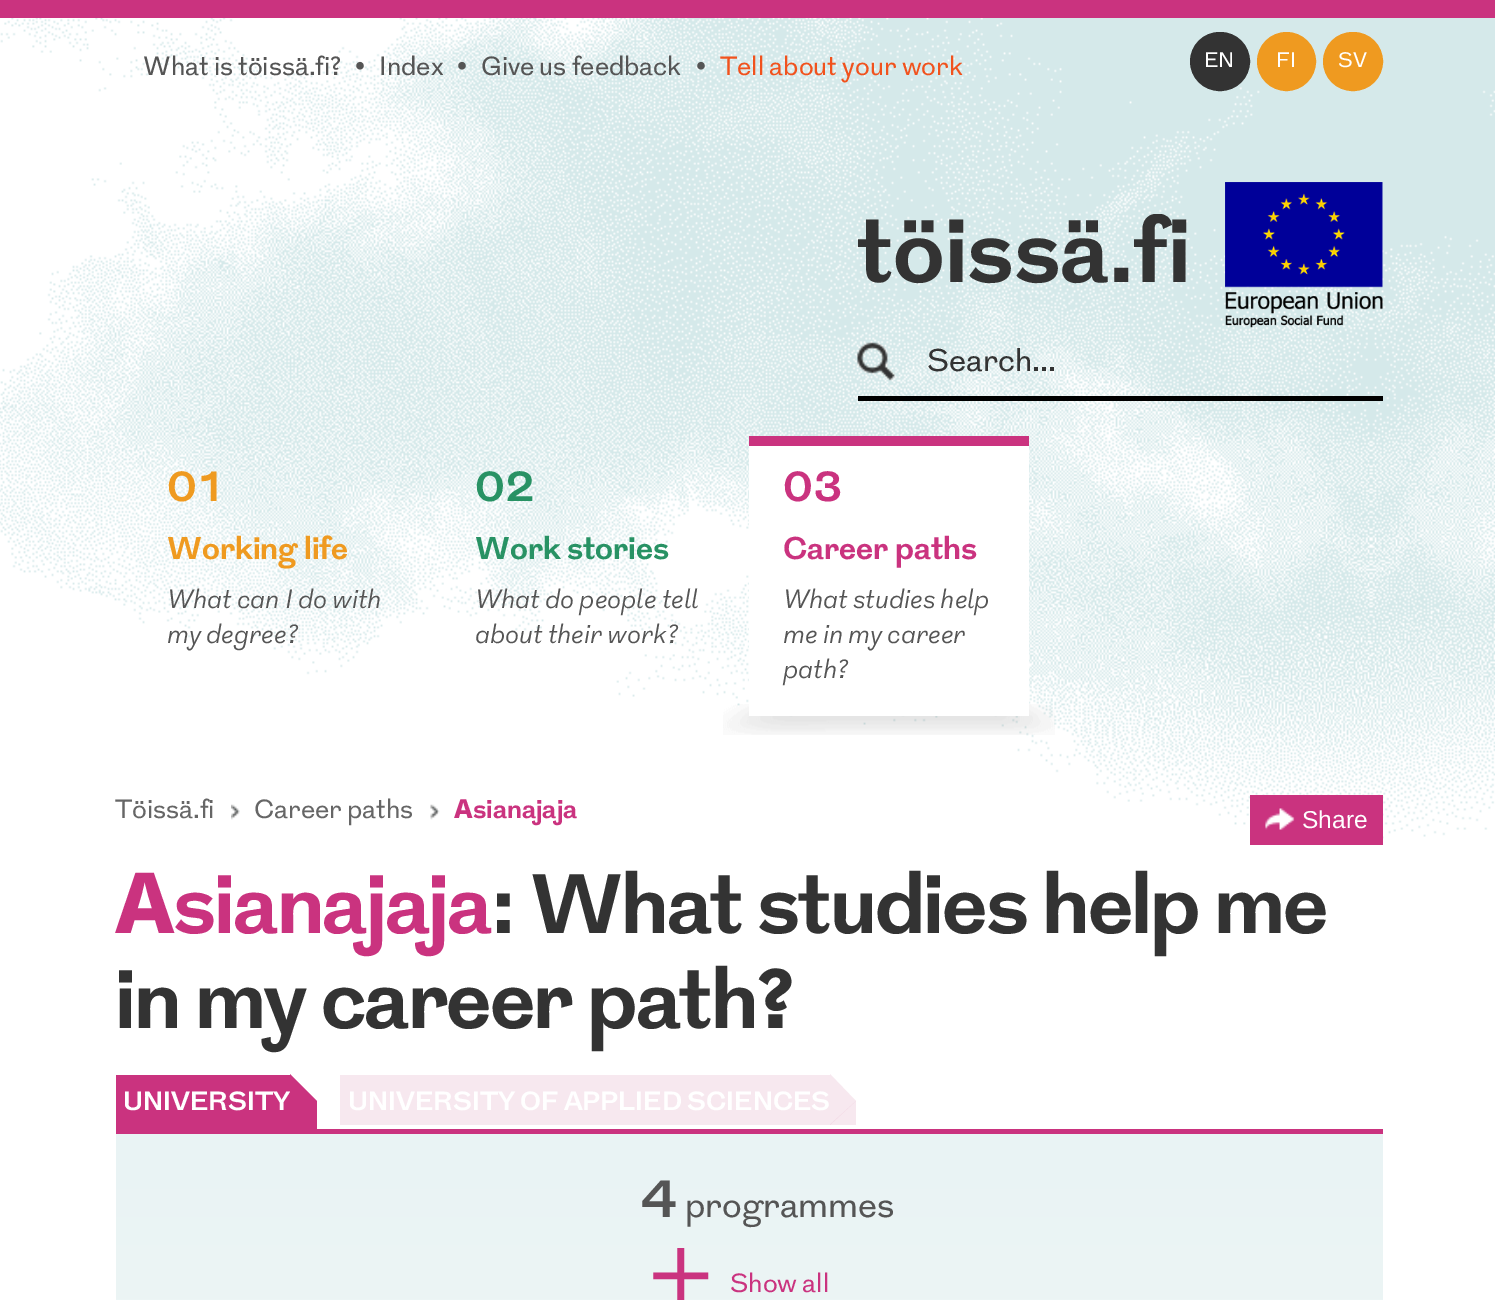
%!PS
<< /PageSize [1495 1300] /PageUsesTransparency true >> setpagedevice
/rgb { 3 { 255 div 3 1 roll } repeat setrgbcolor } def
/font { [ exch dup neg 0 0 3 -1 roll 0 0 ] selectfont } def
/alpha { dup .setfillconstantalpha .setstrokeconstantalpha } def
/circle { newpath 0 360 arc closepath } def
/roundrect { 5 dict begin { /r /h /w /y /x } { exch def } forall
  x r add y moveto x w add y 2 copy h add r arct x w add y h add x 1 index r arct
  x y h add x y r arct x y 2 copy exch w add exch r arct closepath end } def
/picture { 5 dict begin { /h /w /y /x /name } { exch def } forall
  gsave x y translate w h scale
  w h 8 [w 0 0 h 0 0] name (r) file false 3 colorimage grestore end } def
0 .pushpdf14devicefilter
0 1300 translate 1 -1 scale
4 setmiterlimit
255 255 255 rgb
0 0 1495 1300 rectfill
(img/1.rgb) 0 18 1495 826 picture
202 51 127 rgb
0 0 1495 18 rectfill
51 51 51 rgb
1191 33 58 57 28.5 roundrect gsave fill grestore
2 setlinewidth
stroke
239 154 32 rgb
1286.5 61.5 28.5 circle gsave fill grestore
stroke
1324 33 58 57 28.5 roundrect gsave fill grestore
stroke
(img/2.rgb) 1225 182 158 146 picture
(img/3.rgb) 857 342 38 39 picture
0 0 0 rgb
858 396 525 5 rectfill
(img/4.rgb) 723 704 332 31 picture
255 255 255 rgb
749 446 280 270 rectfill
202 51 127 rgb
749 436 280 10 rectfill
(img/5.rgb) 231 804 9 16 picture
(img/6.rgb) 430 804 10 16 picture
1250 795 133 50 rectfill
(img/7.rgb) 1265 808 30 22 picture
[
  [116 1129 1267 5 202 51 127]
  [116 1075 175 54 202 51 127]
  [291 1101 26 28 202 51 127]
  [340 1075 490 50 247 232 239]
] { aload pop rgb rectfill } forall
gsave 116 1134 moveto 1383 1134 lineto 1383 1300 lineto 116 1300 lineto closepath clip newpath
<< /ShadingType 2 /ColorSpace /DeviceRGB /Coords [749 1134 749 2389] /Extend [true true] /Function << /FunctionType 2 /Domain [0 1] /C0 [0.914 0.953 0.957] /C1 [1 1 1] /N 1 >> >> shfill grestore
/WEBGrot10-Regular 26.25 font
85 85 85 rgb
[
  [(What is töissä.fi?) 143 75]
  [(•) 355 75]
  [(Index) 379 75]
  [(•) 457 75]
  [(Give us feedback) 481 75]
  [(•) 696 75]
] { aload pop moveto show } forall
241 82 29 rgb
720 75 moveto (Tell about your work) show
/WEBGrot10-Regular 21 font
255 255 255 rgb
[
  [(EN) 1204 67]
  [(FI) 1276 67]
  [(SV) 1338 67]
] { aload pop moveto show } forall
gsave
858 214 332 91 rectclip
/WEBGrot10-Bold 91 font
51 51 51 rgb
857 282 moveto (töissä.fi) show
grestore
gsave
928 348 437 32 rectclip
/WEBGrot10-Regular 31.5 font
51 51 51 rgb
927 371 moveto (Search...) show
grestore
/WEBGrot10-Bold 42 font
239 154 32 rgb
167 501 moveto (01) show
/WEBGrot10-Bold 31.5 font
167 559 moveto (Working life) show
/WEBGrot10-LightItalic 26.25 font
85 85 85 rgb
167 608 moveto (What can I do with) show
167 643 moveto (my degree?) show
/WEBGrot10-Bold 42 font
40 146 100 rgb
475 501 moveto (02) show
/WEBGrot10-Bold 31.5 font
475 559 moveto (Work stories) show
/WEBGrot10-LightItalic 26.25 font
85 85 85 rgb
475 608 moveto (What do people tell) show
475 643 moveto (about their work?) show
/WEBGrot10-Bold 42 font
202 51 127 rgb
783 501 moveto (03) show
/WEBGrot10-Bold 31.5 font
783 559 moveto (Career paths) show
/WEBGrot10-LightItalic 26.25 font
85 85 85 rgb
[
  [(What studies help) 783 608]
  [(me in my career) 783 643]
  [(path?) 783 678]
] { aload pop moveto show } forall
/WEBGrot10-Regular 26.25 font
102 102 102 rgb
115 818 moveto (Töissä.fi) show
254 818 moveto (Career paths) show
/NotoSans-ExtraBold 26.25 font
202 51 127 rgb
454 818 moveto (A) show
/WEBGrot10-Bold 26.25 font
473 818 moveto (sianajaja) show
/LiberationSans-Regular 24.5 font
255 255 255 rgb
1302 828 moveto (Share) show
/NotoSans-ExtraBold 84 font
202 51 127 rgb
115 933 moveto -1.75 0 (A) ashow
/WEBGrot10-Bold 84 font
173 933 moveto -1.75 0 (sianajaja) ashow
51 51 51 rgb
490 933 moveto -1.75 0 (: What studies help me) ashow
115 1028 moveto -1.75 0 (in my career path?) ashow
/WEBGrot10-Bold 26.25 font
255 255 255 rgb
123 1110 moveto (UNIVERSITY) show
202 51 127 rgb
290 1130 moveto 290 1074 lineto 317 1101 lineto closepath fill
255 255 255 rgb
348 1110 moveto (UNIVERSITY OF APPLIED SCIENCES) show
247 232 239 rgb
856 1125 moveto 829.5 1125 lineto 856 1101 lineto closepath fill
0.3 alpha
229 179 203 rgb
830 1125 moveto 830 1074 lineto 856 1101 lineto closepath fill
/WEBGrot10-Bold 52 font
1 alpha
85 85 85 rgb
640 1217 moveto (4) show
/WEBGrot10-Regular 35 font
685 1217 moveto (programmes) show
/WEBGrot10-Regular 88 font
202 51 127 rgb
650 1307 moveto (+) show
/WEBGrot10-Regular 26.25 font
730 1292 moveto (Show all) show
.poppdf14devicefilter showpage
